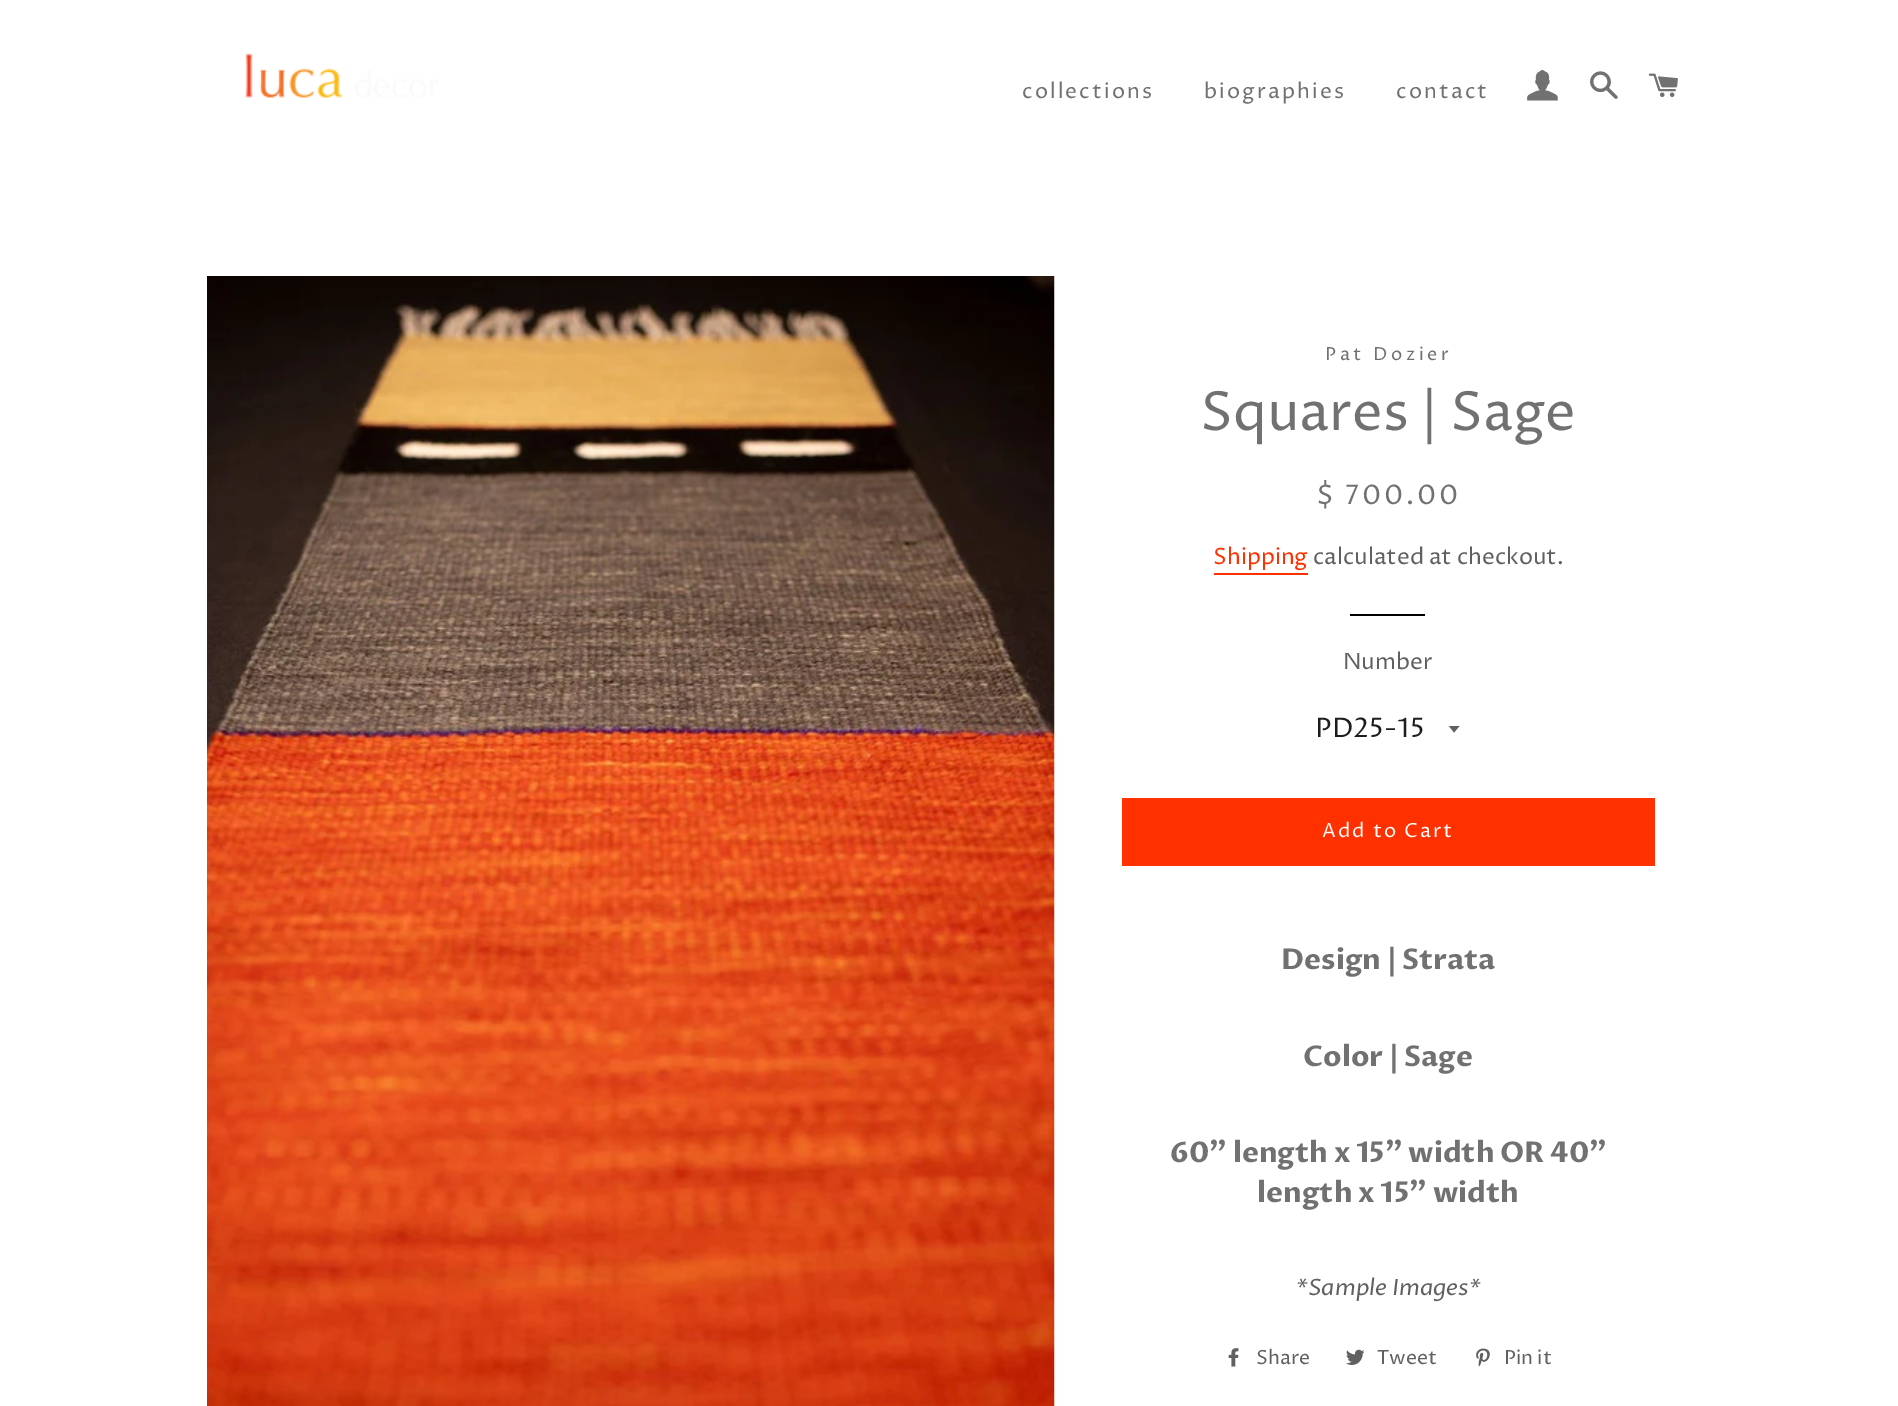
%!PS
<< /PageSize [1898 1406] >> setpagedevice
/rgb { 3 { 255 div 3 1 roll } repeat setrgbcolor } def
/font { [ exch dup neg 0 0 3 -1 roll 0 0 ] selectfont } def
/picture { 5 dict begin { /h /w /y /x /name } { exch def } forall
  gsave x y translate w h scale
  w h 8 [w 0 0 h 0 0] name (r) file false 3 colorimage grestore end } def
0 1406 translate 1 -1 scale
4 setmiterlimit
255 255 255 rgb
0 0 1898 1406 rectfill
(img/1.rgb) 245 53 193 45 picture
(img/2.rgb) 1527 69 31 32 picture
(img/3.rgb) 1590 71 28 28 picture
(img/4.rgb) 1648 73 30 25 picture
(img/5.rgb) 207 276 848 1130 picture
255 49 0 rgb
1214 573 94 2 rectfill
0 0 0 rgb
1350 614 75 2 rectfill
96 96 96 rgb
1449 726 moveto 1454 732.5 lineto 1459.5 726 lineto closepath fill
255 49 0 rgb
1122 798 533 68 rectfill
(img/6.rgb) 1228 1348 11 19 picture
(img/7.rgb) 1346 1349 19 16 picture
(img/8.rgb) 1476 1348 14 19 picture
/ProzaLibre-Regular 21 font
113 113 113 rgb
1022 98 moveto 2.1 0 (collections) ashow
1204 98 moveto 2.1 0 (biographies) ashow
1396 98 moveto 2.1 0 (contact) ashow
/ProzaLibre-Regular 18 font
1325 360 moveto 3.6 0 (Pat Dozier) ashow
/ProzaLibre-Regular 54 font
1200 430 moveto (Squares | Sage) show
/ProzaLibre-Regular 27 font
1316 504 moveto 2.75 0 ($ 700.00) ashow
/ProzaLibre-Regular 22.5 font
255 49 0 rgb
1213 564 moveto (Shipping) show
96 96 96 rgb
1313 564 moveto (calculated at checkout.) show
1343 669 moveto (Number) show
/ProzaLibre-Regular 27 font
28 29 29 rgb
1315 737 moveto (PD25-15) show
/ProzaLibre-Regular 19.5 font
255 255 255 rgb
1322 837 moveto 2 0 (Add to Cart) ashow
/ProzaLibre-Bold 28.5 font
113 113 113 rgb
[
  [(Design | Strata) 1281 969]
  [(Color | Sage) 1303 1066]
  [(60" length x 15" width OR 40") 1170 1162]
  [(length x 15" width) 1257 1202]
] { aload pop moveto show } forall
/ProzaLibre-Italic 22.5 font
96 96 96 rgb
1296 1295 moveto (*Sample Images*) show
/ProzaLibre-Regular 19.5 font
[
  [(Share) 1256 1364]
  [(Tweet) 1377 1364]
  [(Pin it) 1504 1364]
] { aload pop moveto show } forall
showpage
